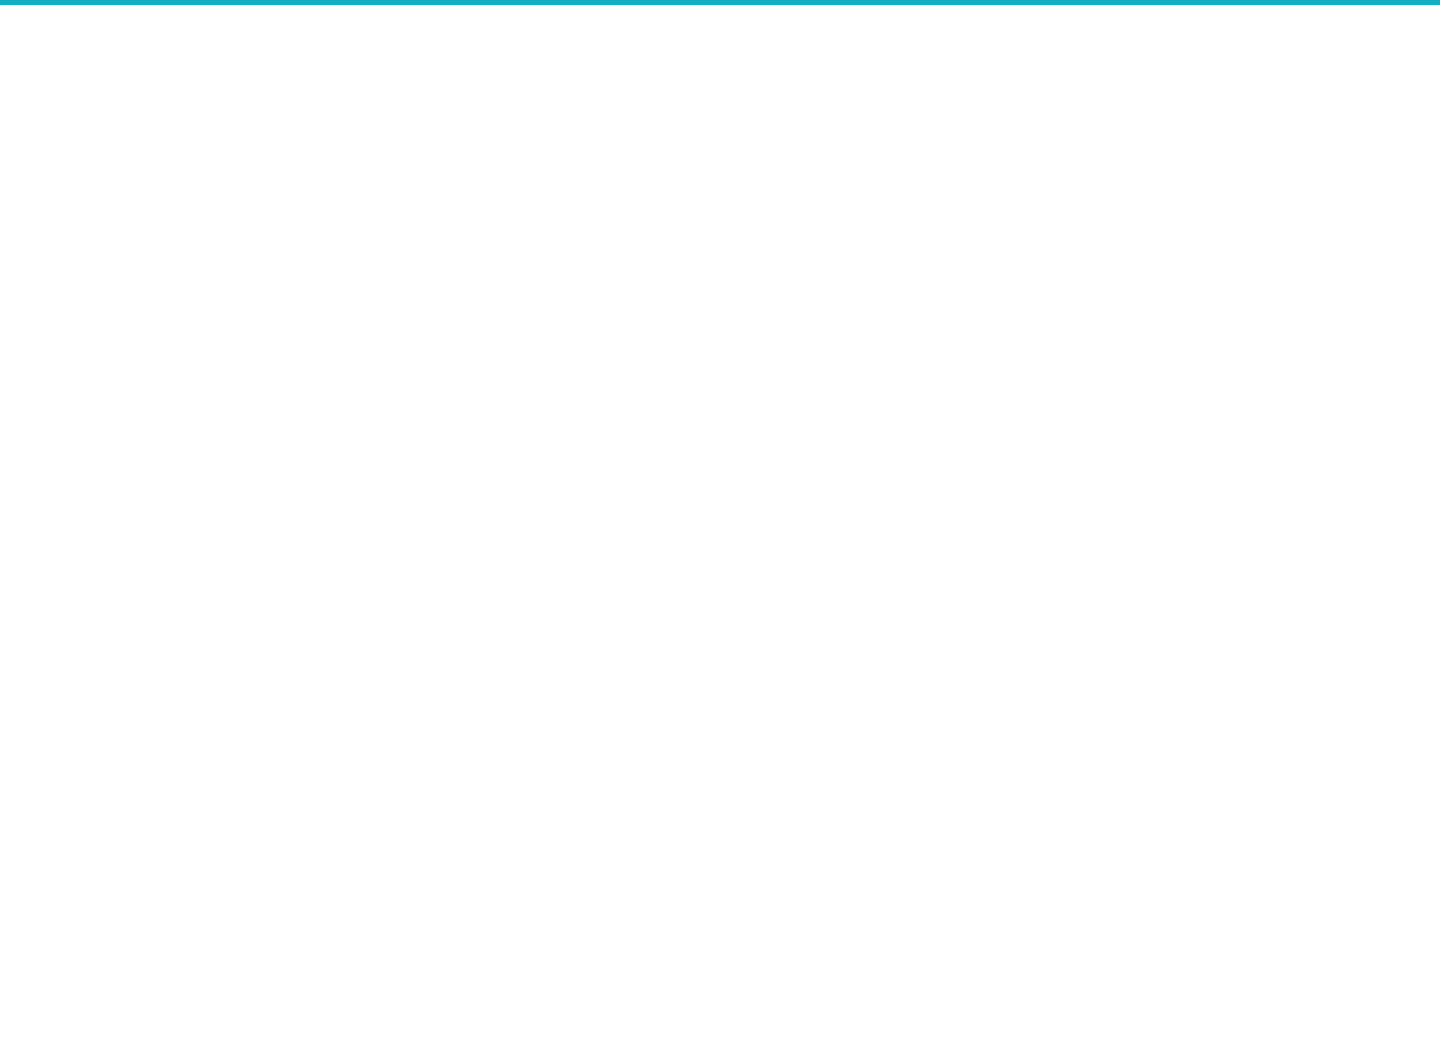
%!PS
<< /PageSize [1440 1052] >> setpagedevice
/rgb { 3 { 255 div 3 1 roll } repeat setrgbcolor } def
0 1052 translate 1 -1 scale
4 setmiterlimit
255 255 255 rgb
0 0 1440 1052 rectfill
16 176 184 rgb
0 0 1440 5 rectfill
showpage
